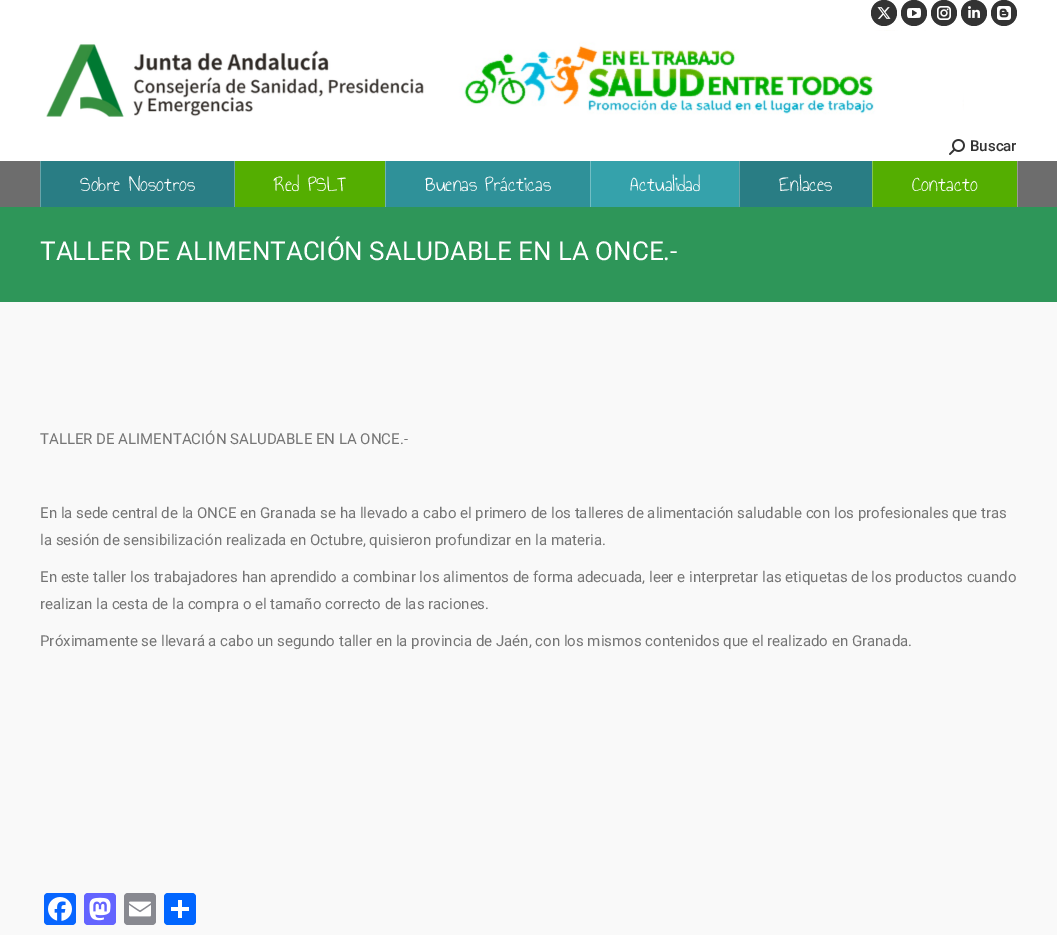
%!PS
<< /PageSize [1057 935] >> setpagedevice
/rgb { 3 { 255 div 3 1 roll } repeat setrgbcolor } def
/font { [ exch dup neg 0 0 3 -1 roll 0 0 ] selectfont } def
/circle { newpath 0 360 arc closepath } def
/roundrect { 5 dict begin { /r /h /w /y /x } { exch def } forall
  x r add y moveto x w add y 2 copy h add r arct x w add y h add x 1 index r arct
  x y h add x y r arct x y 2 copy exch w add exch r arct closepath end } def
/picture { 5 dict begin { /h /w /y /x /name } { exch def } forall
  gsave x y translate w h scale
  w h 8 [w 0 0 h 0 0] name (r) file false 3 colorimage grestore end } def
0 935 translate 1 -1 scale
4 setmiterlimit
249 249 249 rgb
0 0 1057 935 rectfill
255 255 255 rgb
0 0 1057 161 rectfill
51 51 51 rgb
884 13 13 circle fill
(img/1.rgb) 877 7 14 12 picture
914 13 13 circle fill
(img/2.rgb) 907 8 14 10 picture
944 13 13 circle fill
(img/3.rgb) 937 6 14 14 picture
974 13 13 circle fill
(img/4.rgb) 968 6 12 12 picture
1004 13 13 circle fill
(img/5.rgb) 997 6 14 14 picture
(img/6.rgb) 46 30 918 87 picture
(img/7.rgb) 949 139 16 16 picture
[
  [0 161 1057 46 109 109 109]
  [41 161 193 46 41 125 132]
  [40 161 1 46 105 164 169]
  [235 161 150 46 84 174 1]
  [234 161 1 46 105 164 169]
  [386 161 204 46 47 145 153]
  [385 161 1 46 109 178 184]
  [591 161 148 46 53 162 171]
  [590 161 1 46 114 190 196]
  [740 161 132 46 41 125 132]
  [739 161 1 46 105 164 169]
  [873 161 144 46 84 174 1]
  [872 161 1 46 135 198 77]
  [1017 161 1 46 153 153 153]
  [0 207 1057 95 46 150 89]
] { aload pop rgb rectfill } forall
8 102 255 rgb
44 893 32 32 4 roundrect fill
(img/8.rgb) 48 897 24 24 picture
99 100 255 rgb
84 893 32 32 4 roundrect fill
(img/9.rgb) 89 897 22 24 picture
136 137 144 rgb
124 893 32 32 4 roundrect fill
(img/10.rgb) 129 901 22 16 picture
1 102 255 rgb
164 893 32 32 4 roundrect fill
255 255 255 rgb
178 900 4 18 rectfill
171 907 18 4 rectfill
/Roboto-Medium 15 font
51 51 51 rgb
970 151 moveto (Buscar) show
/AnnieUseYourTelescope-Regular 22 font
255 255 255 rgb
[
  [(Sobre Nosotros) 80 191]
  [(Red PSLT) 274 191]
  [(Buenas Prácticas) 425 191]
  [(Actualidad) 630 191]
  [(Enlaces) 779 191]
  [(Contacto) 912 191]
] { aload pop moveto show } forall
/Roboto-Regular 26 font
40 260 moveto (TALLER DE ALIMENTACIÓN SALUDABLE EN LA ONCE.-) show
/Roboto-Regular 15 font
117 117 117 rgb
[
  [(TALLER DE ALIMENTACIÓN SALUDABLE EN LA ONCE.-) 40 444]
  [(En la sede central de la ONCE en Granada se ha llevado a cabo el primero de los talleres de alimentación saludable con los profesionales que tras) 40 518]
  [(la sesión de sensibilización realizada en Octubre, quisieron profundizar en la materia.) 40 545]
  [(En este taller los trabajadores han aprendido a combinar los alimentos de forma adecuada, leer e interpretar las etiquetas de los productos cuando) 40 582]
  [(realizan la cesta de la compra o el tamaño correcto de las raciones.) 40 609]
  [(Próximamente se llevará a cabo un segundo taller en la provincia de Jaén, con los mismos contenidos que el realizado en Granada.) 40 646]
] { aload pop moveto show } forall
showpage
